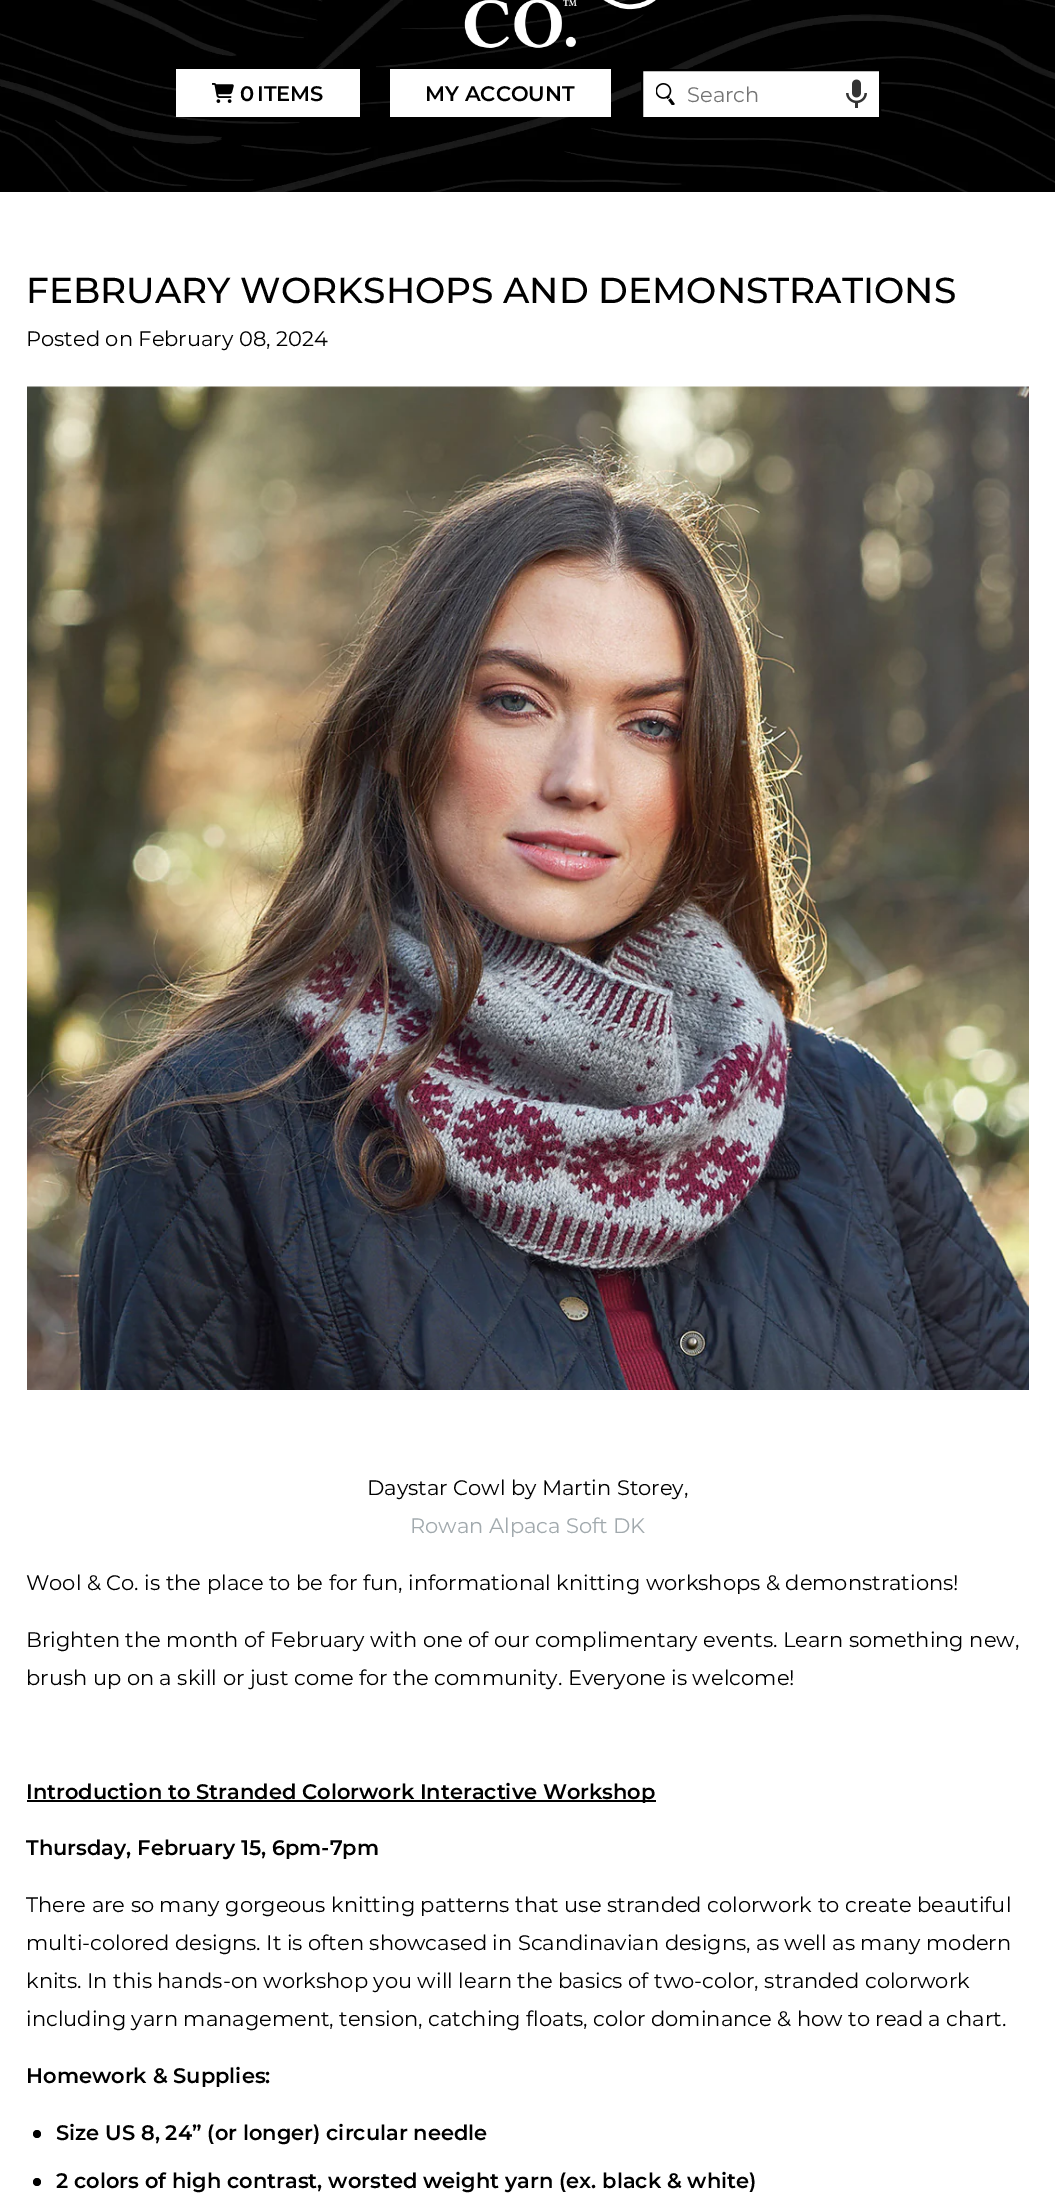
%!PS
<< /PageSize [1055 2209] >> setpagedevice
/rgb { 3 { 255 div 3 1 roll } repeat setrgbcolor } def
/font { [ exch dup neg 0 0 3 -1 roll 0 0 ] selectfont } def
/circle { newpath 0 360 arc closepath } def
/picture { 5 dict begin { /h /w /y /x /name } { exch def } forall
  gsave x y translate w h scale
  w h 8 [w 0 0 h 0 0] name (r) file false 3 colorimage grestore end } def
0 2209 translate 1 -1 scale
4 setmiterlimit
255 255 255 rgb
0 0 1055 2209 rectfill
(img/1.rgb) 0 0 1055 192 picture
(img/2.rgb) 464 0 192 48 picture
176 69 184 48 rectfill
(img/3.rgb) 212 83 22 20 picture
390 69 221 48 rectfill
642 70 moveto 880 70 lineto 880 118 lineto 642 118 lineto closepath gsave fill grestore
0 0 0 rgb
2 setlinewidth
stroke
(img/4.rgb) 656 83 19 22 picture
(img/5.rgb) 846 79 21 29 picture
(img/6.rgb) 27 386 1002 1004 picture
27 1800 629 2 rectfill
37 2134 4 circle fill
37 2182 4 circle fill
/Montserrat-SemiBold 21 font
[
  [(0) 240 101]
  [(ITEMS) 257 101]
  [(MY ACCOUNT) 425 101]
] { aload pop moveto show } forall
/Montserrat-Regular 21 font
117 117 117 rgb
687 102 moveto (Search) show
/Montserrat-Medium 36 font
0 0 0 rgb
26 303 moveto (FEBRUARY WORKSHOPS AND DEMONSTRATIONS) show
/Montserrat-Regular 21 font
26 346 moveto (Posted on February 08, 2024) show
367 1495 moveto (Daystar Cowl by Martin Storey,) show
161 169 173 rgb
410 1533 moveto (Rowan Alpaca Soft DK) show
0 0 0 rgb
[
  [(Wool & Co. is the place to be for fun, informational knitting workshops & demonstrations!) 26 1590]
  [(Brighten the month of February with one of our complimentary events. Learn something new,) 26 1647]
  [(brush up on a skill or just come for the community. Everyone is welcome!) 26 1685]
] { aload pop moveto show } forall
/Montserrat-SemiBold 21 font
26 1799 moveto (Introduction to Stranded Colorwork Interactive Workshop) show
26 1855 moveto (Thursday, February 15, 6pm-7pm) show
/Montserrat-Regular 21 font
[
  [(There are so many gorgeous knitting patterns that use stranded colorwork to create beautiful) 26 1912]
  [(multi-colored designs. It is often showcased in Scandinavian designs, as well as many modern) 26 1950]
  [(knits. In this hands-on workshop you will learn the basics of two-color, stranded colorwork) 26 1988]
  [(including yarn management, tension, catching floats, color dominance & how to read a chart.) 26 2026]
] { aload pop moveto show } forall
/Montserrat-SemiBold 21 font
[
  [(Homework & Supplies:) 26 2083]
  [(Size US 8, 24” \(or longer\) circular needle) 56 2140]
  [(2 colors of high contrast, worsted weight yarn \(ex. black & white\)) 56 2188]
] { aload pop moveto show } forall
showpage
